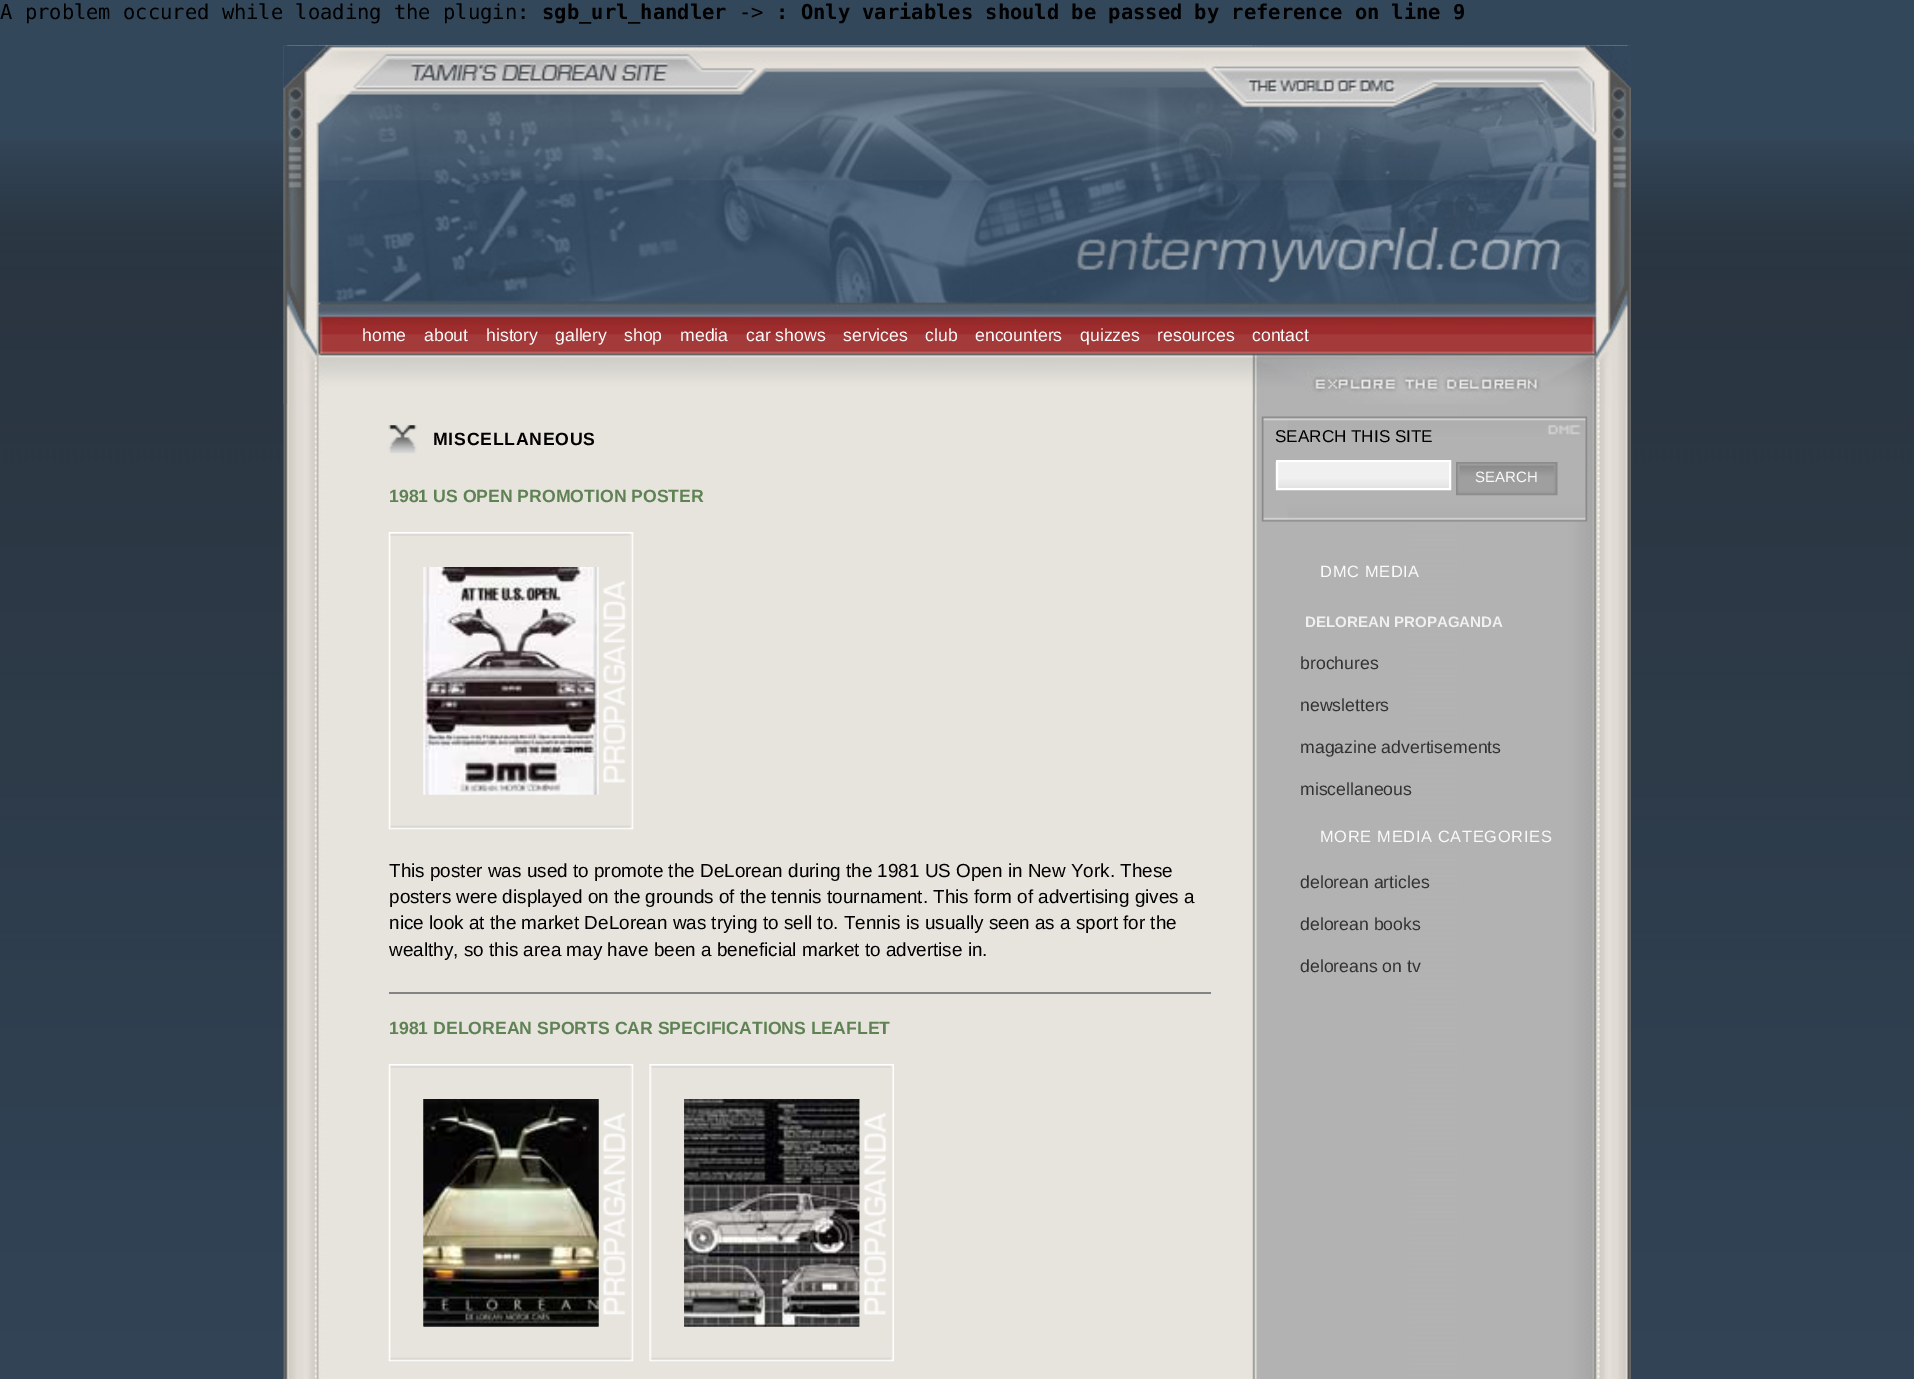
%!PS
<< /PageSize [1914 1379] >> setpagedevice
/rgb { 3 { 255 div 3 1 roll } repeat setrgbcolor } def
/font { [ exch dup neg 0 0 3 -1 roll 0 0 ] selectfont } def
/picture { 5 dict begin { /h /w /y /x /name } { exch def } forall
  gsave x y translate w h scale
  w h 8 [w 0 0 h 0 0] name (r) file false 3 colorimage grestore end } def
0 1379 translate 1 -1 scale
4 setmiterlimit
51 71 91 rgb
0 0 1914 1379 rectfill
(img/1.rgb) 0 140 1914 1239 picture
(img/2.rgb) 283 45 1348 1334 picture
(img/3.rgb) 283 45 1348 360 picture
(img/4.rgb) 388 425 29 29 picture
132 132 132 rgb
389 992 822 2 rectfill
(img/5.rgb) 388 532 246 298 picture
(img/6.rgb) 423 567 176 228 picture
(img/7.rgb) 388 1064 246 298 picture
(img/8.rgb) 649 1064 245 298 picture
(img/9.rgb) 423 1099 176 228 picture
(img/10.rgb) 684 1099 176 228 picture
(img/11.rgb) 1261 416 327 106 picture
(img/12.rgb) 1275 462 174 28 picture
255 255 255 rgb
2 setlinewidth
1277 461 173 28 rectstroke
(img/13.rgb) 1456 462 102 34 picture
/DejaVuSansMono-Regular 20.45 font
0 0 0 rgb
0 19 moveto (A problem occured while loading the plugin:) show
/DejaVuSansMono-Bold 20.45 font
542 19 moveto (sgb_url_handler) show
/DejaVuSansMono-Regular 20.45 font
739 19 moveto (->) show
/DejaVuSansMono-Bold 20.45 font
776 19 moveto (: Only variables should be passed by reference on line 9) show
/LiberationSans-Regular 17.65 font
250 250 250 rgb
[
  [(home) 362 341]
  [(about) 424 341]
  [(history) 486 341]
  [(gallery) 555 341]
  [(shop) 624 341]
  [(media) 680 341]
  [(car shows) 746 341]
  [(services) 843 341]
  [(club) 925 341]
  [(encounters) 975 341]
  [(quizzes) 1080 341]
  [(resources) 1157 341]
  [(contact) 1252 341]
] { aload pop moveto show } forall
/LiberationSans-Bold 17.65 font
0 0 0 rgb
433 445 moveto 0.75 0 (MISCELLANEOUS) ashow
95 130 85 rgb
389 502 moveto (1981 US OPEN PROMOTION POSTER) show
/LiberationSans-Regular 18.9 font
0 0 0 rgb
[
  [(This poster was used to promote the DeLorean during the 1981 US Open in New York. These) 389 877]
  [(posters were displayed on the grounds of the tennis tournament. This form of advertising gives a) 389 903]
  [(nice look at the market DeLorean was trying to sell to. Tennis is usually seen as a sport for the) 389 929]
  [(wealthy, so this area may have been a beneficial market to advertise in.) 389 956]
] { aload pop moveto show } forall
/LiberationSans-Bold 17.65 font
95 130 85 rgb
389 1034 moveto (1981 DELOREAN SPORTS CAR SPECIFICATIONS LEAFLET) show
/LiberationSans-Regular 17.1 font
0 0 0 rgb
1275 442 moveto (SEARCH THIS SITE) show
/LiberationSans-Regular 15 font
250 250 250 rgb
1475 482 moveto (SEARCH) show
/LiberationSans-Regular 16.4 font
1320 577 moveto 0.7 0 (DMC MEDIA) ashow
/LiberationSans-Bold 15.1 font
240 240 240 rgb
1305 627 moveto (DELOREAN PROPAGANDA) show
/LiberationSans-Regular 17.65 font
51 51 51 rgb
[
  [(brochures) 1300 669]
  [(newsletters) 1300 711]
  [(magazine advertisements) 1300 753]
  [(miscellaneous) 1300 795]
] { aload pop moveto show } forall
/LiberationSans-Regular 16.4 font
250 250 250 rgb
1320 842 moveto 0.7 0 (MORE MEDIA CATEGORIES) ashow
/LiberationSans-Regular 17.65 font
51 51 51 rgb
[
  [(delorean articles) 1300 888]
  [(delorean books) 1300 930]
  [(deloreans on tv) 1300 972]
] { aload pop moveto show } forall
showpage
